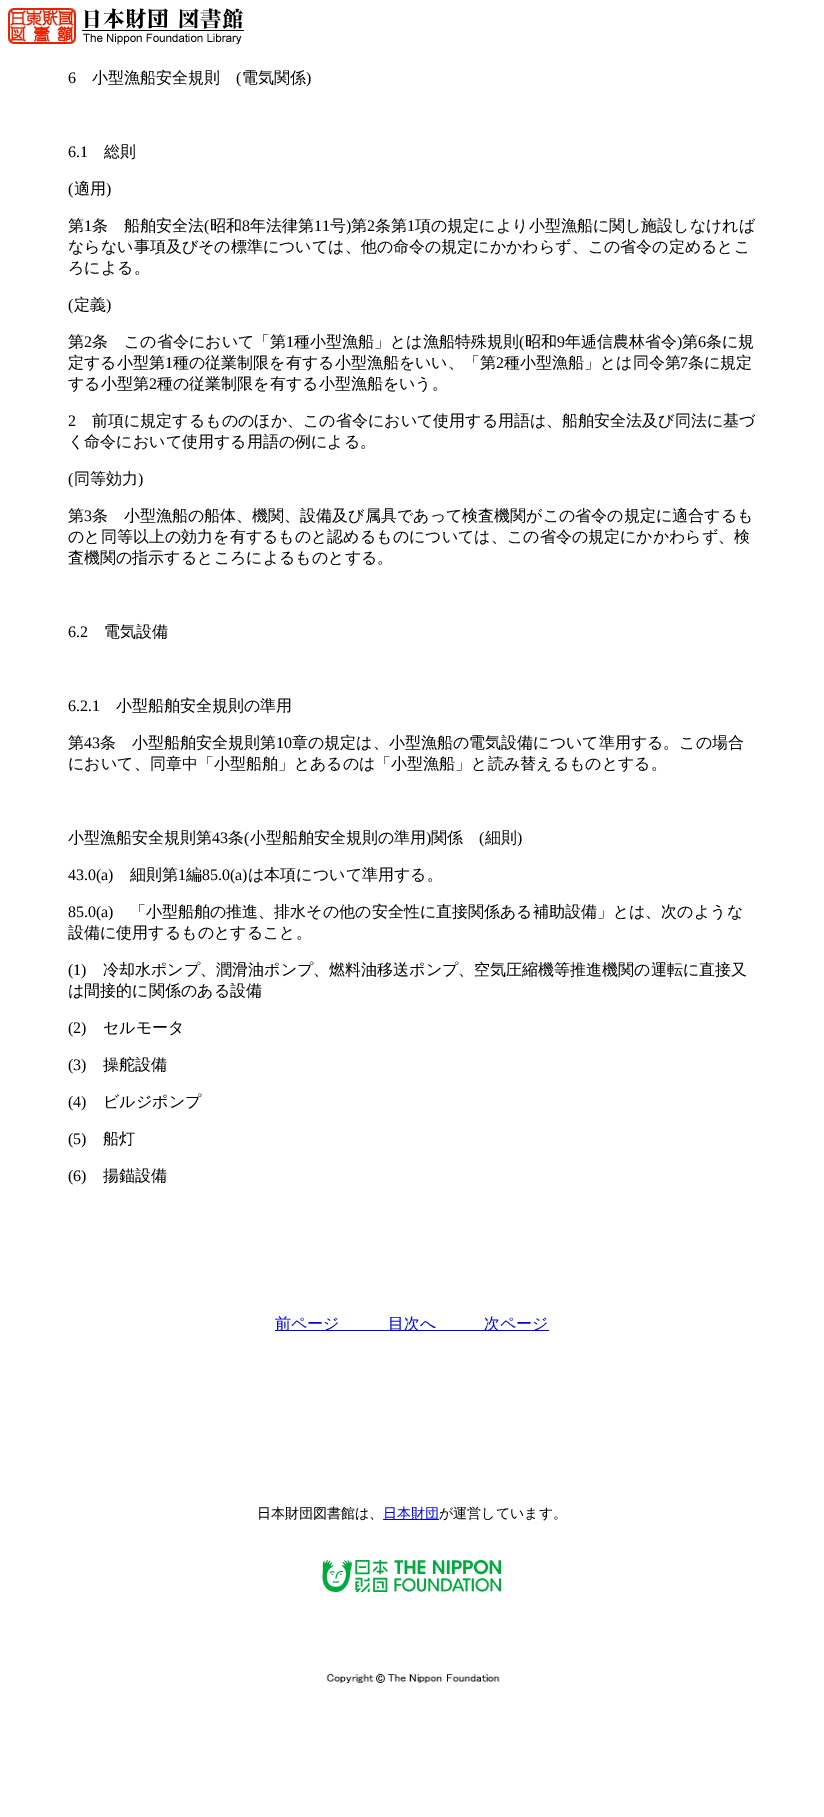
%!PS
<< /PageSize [824 1817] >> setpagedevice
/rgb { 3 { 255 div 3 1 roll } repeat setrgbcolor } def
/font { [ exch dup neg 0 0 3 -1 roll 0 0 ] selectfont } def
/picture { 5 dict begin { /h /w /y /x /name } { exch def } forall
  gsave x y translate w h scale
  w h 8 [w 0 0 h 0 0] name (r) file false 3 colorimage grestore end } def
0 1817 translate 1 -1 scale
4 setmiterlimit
255 255 255 rgb
0 0 824 1817 rectfill
(img/1.rgb) 8 8 236 37 picture
0 0 238 rgb
275 1330 274 1 rectfill
383 1519 56 1 rectfill
(img/2.rgb) 322 1560 179 32 picture
(img/3.rgb) 326 1674 174 9 picture
/LiberationSerif-Regular 16 font
0 0 0 rgb
68 83 moveto (6) show
/WenQuanYiZenHei-Medium 16 font
92 83 moveto (小型漁船安全規則) show
/LiberationSerif-Regular 16 font
236 83 moveto (\() show
/WenQuanYiZenHei-Medium 16 font
242 83 moveto (電気関係) show
/LiberationSerif-Regular 16 font
306 83 moveto (\)) show
68 157 moveto (6.1) show
/WenQuanYiZenHei-Medium 16 font
104 157 moveto (総則) show
/LiberationSerif-Regular 16 font
68 194 moveto (\() show
/WenQuanYiZenHei-Medium 16 font
74 194 moveto (適用) show
/LiberationSerif-Regular 16 font
106 194 moveto (\)) show
/WenQuanYiZenHei-Medium 16 font
68 231 moveto (第) show
/LiberationSerif-Regular 16 font
84 231 moveto (1) show
/WenQuanYiZenHei-Medium 16 font
92 231 moveto (条　船舶安全法) show
/LiberationSerif-Regular 16 font
204 231 moveto (\() show
/WenQuanYiZenHei-Medium 16 font
210 231 moveto (昭和) show
/LiberationSerif-Regular 16 font
242 231 moveto (8) show
/WenQuanYiZenHei-Medium 16 font
250 231 moveto (年法律第) show
/LiberationSerif-Regular 16 font
314 231 moveto (11) show
/WenQuanYiZenHei-Medium 16 font
330 231 moveto (号) show
/LiberationSerif-Regular 16 font
346 231 moveto (\)) show
/WenQuanYiZenHei-Medium 16 font
351 231 moveto (第) show
/LiberationSerif-Regular 16 font
367 231 moveto (2) show
/WenQuanYiZenHei-Medium 16 font
375 231 moveto (条第) show
/LiberationSerif-Regular 16 font
407 231 moveto (1) show
/WenQuanYiZenHei-Medium 16 font
[
  [(項の規定により小型漁船に関し施設しなければ) 415 231]
  [(ならない事項及びその標準については、他の命令の規定にかかわらず、この省令の定めるとこ) 68 252]
  [(ろによる。) 68 273]
] { aload pop moveto show } forall
/LiberationSerif-Regular 16 font
68 310 moveto (\() show
/WenQuanYiZenHei-Medium 16 font
74 310 moveto (定義) show
/LiberationSerif-Regular 16 font
106 310 moveto (\)) show
/WenQuanYiZenHei-Medium 16 font
68 347 moveto (第) show
/LiberationSerif-Regular 16 font
84 347 moveto (2) show
/WenQuanYiZenHei-Medium 16 font
92 347 moveto (条　この省令において「第) show
/LiberationSerif-Regular 16 font
286 347 moveto (1) show
/WenQuanYiZenHei-Medium 16 font
294 347 moveto (種小型漁船」とは漁船特殊規則) show
/LiberationSerif-Regular 16 font
519 347 moveto (\() show
/WenQuanYiZenHei-Medium 16 font
525 347 moveto (昭和) show
/LiberationSerif-Regular 16 font
557 347 moveto (9) show
/WenQuanYiZenHei-Medium 16 font
565 347 moveto (年逓信農林省令) show
/LiberationSerif-Regular 16 font
677 347 moveto (\)) show
/WenQuanYiZenHei-Medium 16 font
682 347 moveto (第) show
/LiberationSerif-Regular 16 font
698 347 moveto (6) show
/WenQuanYiZenHei-Medium 16 font
706 347 moveto (条に規) show
68 368 moveto (定する小型第) show
/LiberationSerif-Regular 16 font
165 368 moveto (1) show
/WenQuanYiZenHei-Medium 16 font
173 368 moveto (種の従業制限を有する小型漁船をいい、「第) show
/LiberationSerif-Regular 16 font
496 368 moveto (2) show
/WenQuanYiZenHei-Medium 16 font
504 368 moveto (種小型漁船」とは同令第) show
/LiberationSerif-Regular 16 font
680 368 moveto (7) show
/WenQuanYiZenHei-Medium 16 font
688 368 moveto (条に規定) show
68 389 moveto (する小型第) show
/LiberationSerif-Regular 16 font
149 389 moveto (2) show
/WenQuanYiZenHei-Medium 16 font
157 389 moveto (種の従業制限を有する小型漁船をいう。) show
/LiberationSerif-Regular 16 font
68 426 moveto (2) show
/WenQuanYiZenHei-Medium 16 font
92 426 moveto (前項に規定するもののほか、この省令において使用する用語は、船舶安全法及び同法に基づ) show
68 447 moveto (く命令において使用する用語の例による。) show
/LiberationSerif-Regular 16 font
68 484 moveto (\() show
/WenQuanYiZenHei-Medium 16 font
74 484 moveto (同等効力) show
/LiberationSerif-Regular 16 font
138 484 moveto (\)) show
/WenQuanYiZenHei-Medium 16 font
68 521 moveto (第) show
/LiberationSerif-Regular 16 font
84 521 moveto (3) show
/WenQuanYiZenHei-Medium 16 font
[
  [(条　小型漁船の船体、機関、設備及び属具であって検査機関がこの省令の規定に適合するも) 92 521]
  [(のと同等以上の効力を有するものと認めるものについては、この省令の規定にかかわらず、検) 68 542]
  [(査機関の指示するところによるものとする。) 68 563]
] { aload pop moveto show } forall
/LiberationSerif-Regular 16 font
68 637 moveto (6.2) show
/WenQuanYiZenHei-Medium 16 font
104 637 moveto (電気設備) show
/LiberationSerif-Regular 16 font
68 711 moveto (6.2.1) show
/WenQuanYiZenHei-Medium 16 font
116 711 moveto (小型船舶安全規則の準用) show
68 748 moveto (第) show
/LiberationSerif-Regular 16 font
84 748 moveto (43) show
/WenQuanYiZenHei-Medium 16 font
100 748 moveto (条　小型船舶安全規則第) show
/LiberationSerif-Regular 16 font
276 748 moveto (10) show
/WenQuanYiZenHei-Medium 16 font
[
  [(章の規定は、小型漁船の電気設備について準用する。この場合) 292 748]
  [(において、同章中「小型船舶」とあるのは「小型漁船」と読み替えるものとする。) 68 769]
  [(小型漁船安全規則第) 68 843]
] { aload pop moveto show } forall
/LiberationSerif-Regular 16 font
212 843 moveto (43) show
/WenQuanYiZenHei-Medium 16 font
228 843 moveto (条) show
/LiberationSerif-Regular 16 font
244 843 moveto (\() show
/WenQuanYiZenHei-Medium 16 font
250 843 moveto (小型船舶安全規則の準用) show
/LiberationSerif-Regular 16 font
426 843 moveto (\)) show
/WenQuanYiZenHei-Medium 16 font
431 843 moveto (関係) show
/LiberationSerif-Regular 16 font
479 843 moveto (\() show
/WenQuanYiZenHei-Medium 16 font
485 843 moveto (細則) show
/LiberationSerif-Regular 16 font
517 843 moveto (\)) show
68 880 moveto (43.0\(a\)) show
/WenQuanYiZenHei-Medium 16 font
130 880 moveto (細則第) show
/LiberationSerif-Regular 16 font
178 880 moveto (1) show
/WenQuanYiZenHei-Medium 16 font
186 880 moveto (編) show
/LiberationSerif-Regular 16 font
202 880 moveto (85.0\(a\)) show
/WenQuanYiZenHei-Medium 16 font
248 880 moveto (は本項について準用する。) show
/LiberationSerif-Regular 16 font
68 917 moveto (85.0\(a\)) show
/WenQuanYiZenHei-Medium 16 font
130 917 moveto (「小型船舶の推進、排水その他の安全性に直接関係ある補助設備」とは、次のような) show
68 938 moveto (設備に使用するものとすること。) show
/LiberationSerif-Regular 16 font
68 975 moveto (\(1\)) show
/WenQuanYiZenHei-Medium 16 font
103 975 moveto (冷却水ポンプ、潤滑油ポンプ、燃料油移送ポンプ、空気圧縮機等推進機関の運転に直接又) show
68 996 moveto (は間接的に関係のある設備) show
/LiberationSerif-Regular 16 font
68 1033 moveto (\(2\)) show
/WenQuanYiZenHei-Medium 16 font
103 1033 moveto (セルモータ) show
/LiberationSerif-Regular 16 font
68 1070 moveto (\(3\)) show
/WenQuanYiZenHei-Medium 16 font
103 1070 moveto (操舵設備) show
/LiberationSerif-Regular 16 font
68 1107 moveto (\(4\)) show
/WenQuanYiZenHei-Medium 16 font
103 1107 moveto (ビルジポンプ) show
/LiberationSerif-Regular 16 font
68 1144 moveto (\(5\)) show
/WenQuanYiZenHei-Medium 16 font
103 1144 moveto (船灯) show
/LiberationSerif-Regular 16 font
68 1181 moveto (\(6\)) show
/WenQuanYiZenHei-Medium 16 font
103 1181 moveto (揚錨設備) show
0 0 238 rgb
[
  [(前ページ) 275 1329]
  [(目次へ) 388 1329]
  [(次ページ) 484 1329]
] { aload pop moveto show } forall
/WenQuanYiZenHei-Medium 14 font
0 0 0 rgb
257 1518 moveto (日本財団図書館は、) show
0 0 238 rgb
383 1518 moveto (日本財団) show
0 0 0 rgb
439 1518 moveto (が運営しています。) show
showpage
